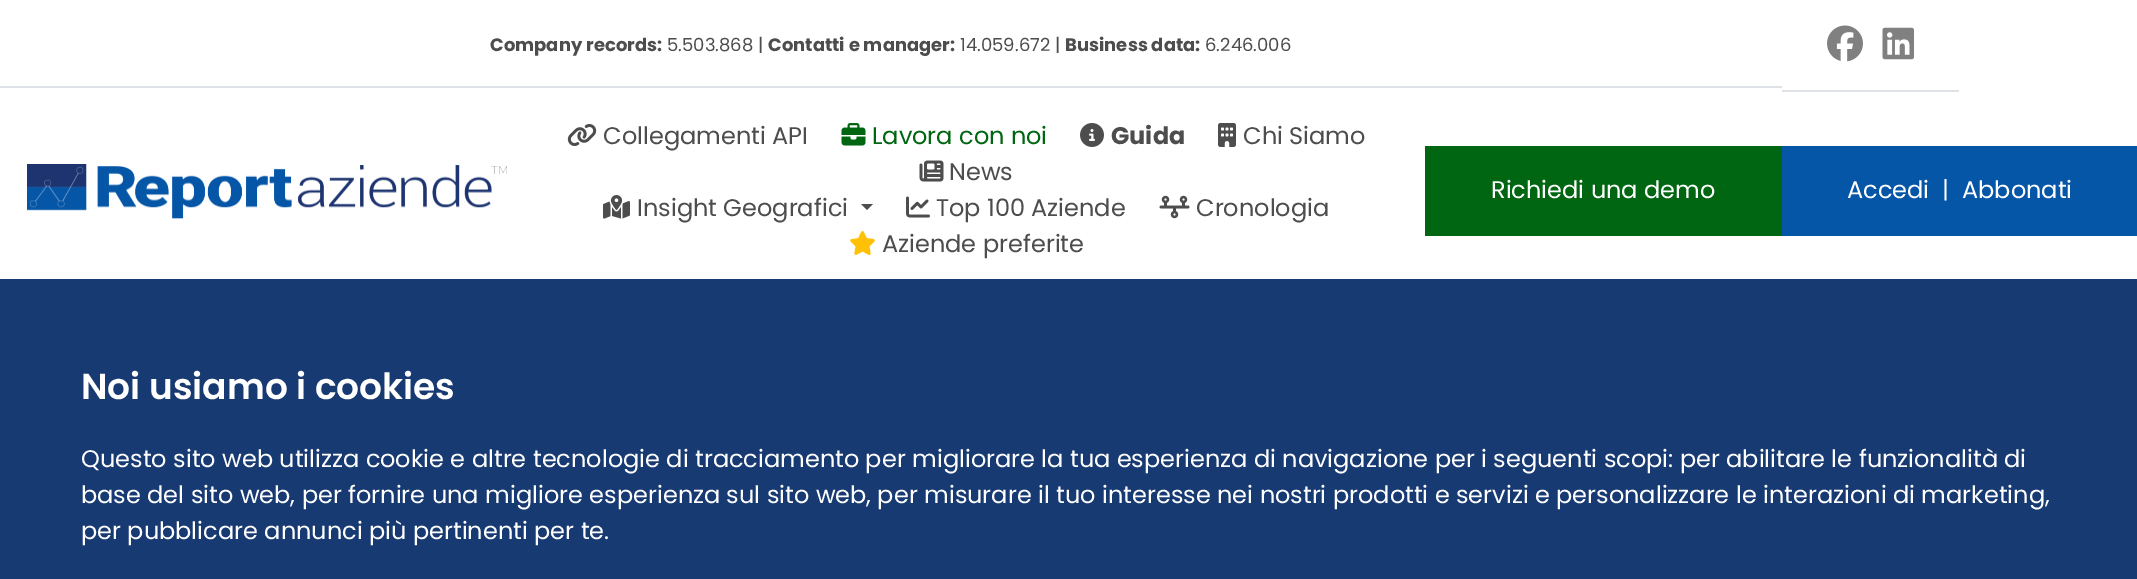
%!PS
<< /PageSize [2137 579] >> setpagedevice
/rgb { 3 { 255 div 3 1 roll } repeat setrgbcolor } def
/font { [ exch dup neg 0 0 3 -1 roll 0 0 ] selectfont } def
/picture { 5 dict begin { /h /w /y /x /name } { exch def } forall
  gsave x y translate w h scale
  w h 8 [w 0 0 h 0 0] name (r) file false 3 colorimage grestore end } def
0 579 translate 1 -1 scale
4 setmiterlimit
255 255 255 rgb
0 0 2137 579 rectfill
222 226 230 rgb
0 86 1782 2 rectfill
1782 90 177 2 rectfill
(img/1.rgb) 1827 25 36 37 picture
(img/2.rgb) 1882 27 32 33 picture
(img/3.rgb) 27 164 480 55 picture
(img/4.rgb) 567 124 30 22 picture
(img/5.rgb) 841 123 25 23 picture
(img/6.rgb) 1080 123 24 24 picture
(img/7.rgb) 1218 123 18 24 picture
(img/8.rgb) 919 160 25 22 picture
(img/9.rgb) 603 195 27 24 picture
77 77 77 rgb
861 204 moveto 873 204 lineto 867 210 lineto closepath fill
(img/10.rgb) 906 196 24 22 picture
(img/11.rgb) 1159 195 31 24 picture
(img/12.rgb) 850 231 25 24 picture
[
  [1425 146 357 90 0 102 17]
  [1782 146 355 90 6 86 167]
  [0 279 2137 300 24 58 114]
] { aload pop rgb rectfill } forall
/Poppins-Bold 18 font
77 77 77 rgb
490 51 moveto (Company records:) show
/Poppins-Regular 18 font
667 51 moveto (5.503.868 |) show
/Poppins-Bold 18 font
768 51 moveto (Contatti e manager:) show
/Poppins-Regular 18 font
960 51 moveto (14.059.672 |) show
/Poppins-Bold 18 font
1065 51 moveto (Business data:) show
/Poppins-Regular 18 font
1205 51 moveto (6.246.006) show
/Poppins-Regular 24 font
603 144 moveto (Collegamenti API) show
0 102 17 rgb
872 144 moveto (Lavora con noi) show
/Poppins-Bold 24 font
77 77 77 rgb
1111 144 moveto (Guida) show
/Poppins-Regular 24 font
[
  [(Chi Siamo) 1243 144]
  [(News) 949 180]
  [(Insight Geografici) 637 216]
  [(Top 100 Aziende) 936 216]
  [(Cronologia) 1196 216]
  [(Aziende preferite) 882 252]
] { aload pop moveto show } forall
255 255 255 rgb
[
  [(Richiedi una demo) 1491 198]
  [(Accedi) 1847 198]
  [(|) 1942 198]
  [(Abbonati) 1962 198]
] { aload pop moveto show } forall
/Poppins-SemiBold 36 font
81 399 moveto (Noi usiamo i cookies) show
/Poppins-Regular 24 font
[
  [(Questo sito web utilizza cookie e altre tecnologie di tracciamento per migliorare la tua esperienza di navigazione per i seguenti scopi: per abilitare le funzionalità di) 81 467]
  [(base del sito web, per fornire una migliore esperienza sul sito web, per misurare il tuo interesse nei nostri prodotti e servizi e personalizzare le interazioni di marketing,) 81 503]
  [(per pubblicare annunci più pertinenti per te.) 81 539]
] { aload pop moveto show } forall
showpage
